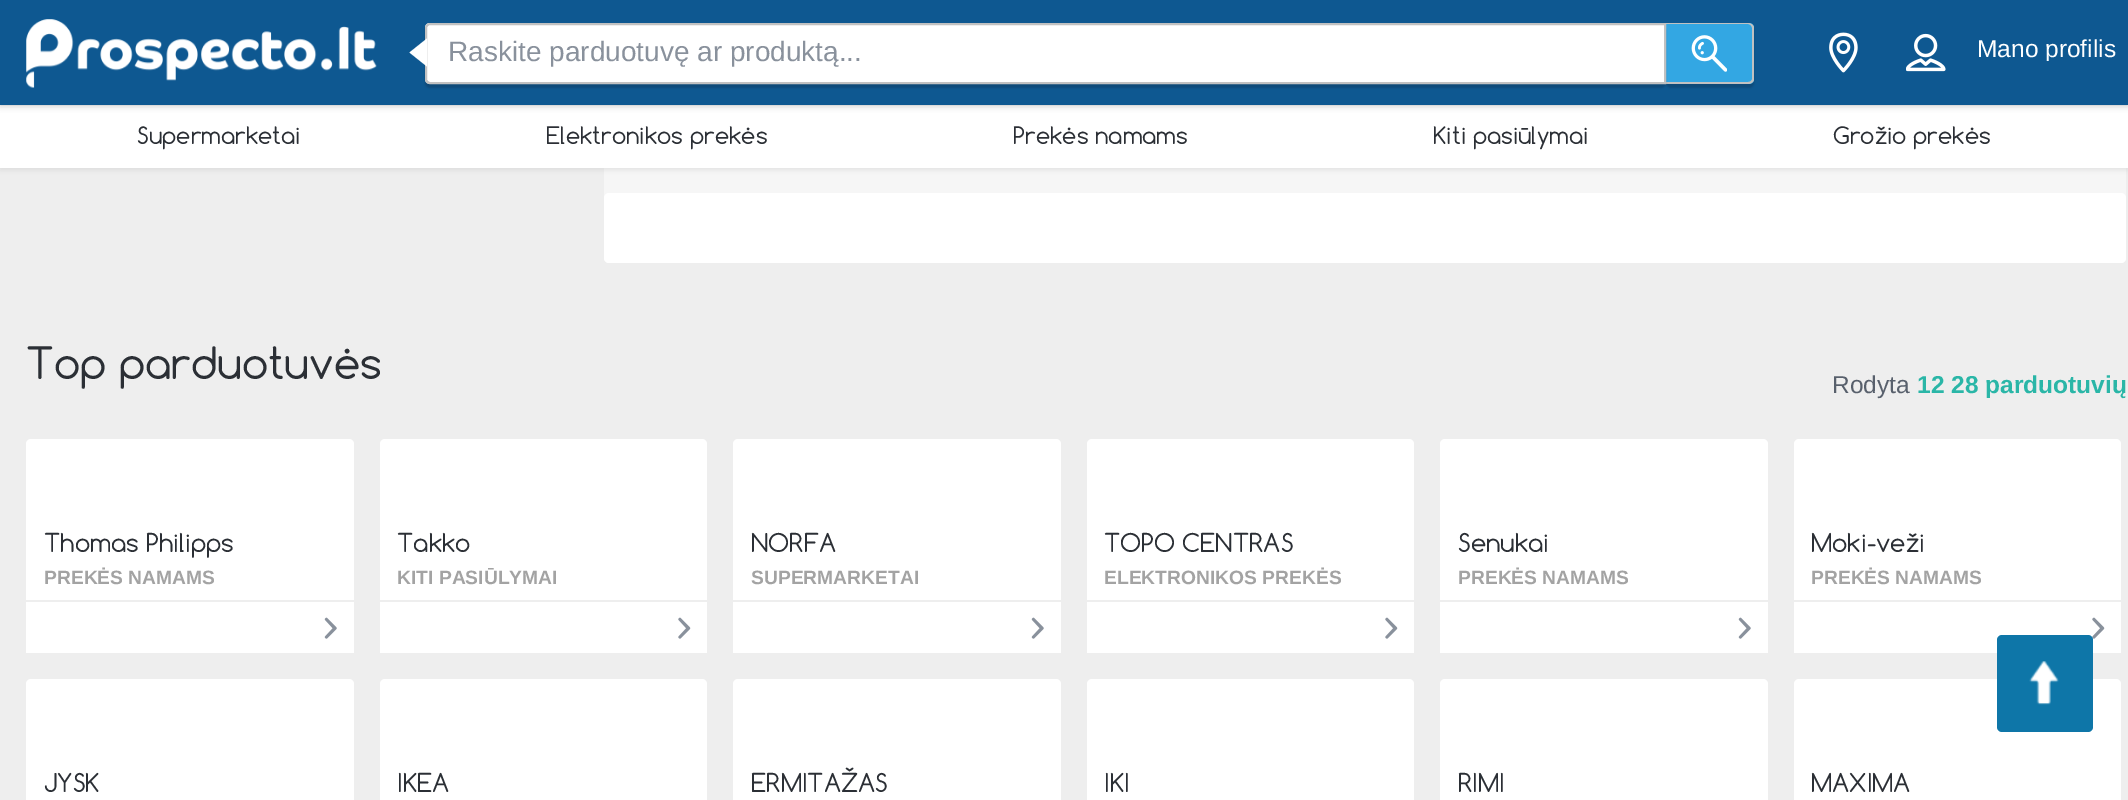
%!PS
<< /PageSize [2128 800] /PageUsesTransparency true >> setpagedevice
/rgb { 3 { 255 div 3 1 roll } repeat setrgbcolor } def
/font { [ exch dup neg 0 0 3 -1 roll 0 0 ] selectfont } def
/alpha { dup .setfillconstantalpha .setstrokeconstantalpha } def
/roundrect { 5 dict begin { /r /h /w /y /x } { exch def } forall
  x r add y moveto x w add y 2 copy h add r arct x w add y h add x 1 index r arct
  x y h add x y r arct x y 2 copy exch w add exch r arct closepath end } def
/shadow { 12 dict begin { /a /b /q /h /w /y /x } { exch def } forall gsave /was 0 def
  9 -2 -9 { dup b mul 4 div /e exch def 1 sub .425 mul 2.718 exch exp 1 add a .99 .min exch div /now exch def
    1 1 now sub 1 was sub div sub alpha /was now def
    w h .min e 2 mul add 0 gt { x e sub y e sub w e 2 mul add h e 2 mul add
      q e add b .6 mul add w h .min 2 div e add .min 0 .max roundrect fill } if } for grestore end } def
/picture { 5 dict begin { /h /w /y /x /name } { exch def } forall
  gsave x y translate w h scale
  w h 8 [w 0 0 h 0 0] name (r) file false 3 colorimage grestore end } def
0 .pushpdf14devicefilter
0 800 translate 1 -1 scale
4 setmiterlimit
238 238 238 rgb
0 0 2128 800 rectfill
246 246 246 rgb
604 -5 1522 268 5 roundrect fill
153 153 153 rgb
0 107 2128 63 0 2.5 0.2 shadow
255 255 255 rgb
0 105 2128 63 rectfill
0 0 0 rgb
0 0 2128 105 0 3.5 0.28 shadow
14 88 145 rgb
0 0 2128 105 rectfill
(img/1.rgb) 26 19 351 69 picture
0 0 0 rgb
1666 26 88 62 5 1 0.17 shadow
255 255 255 rgb
430 23 moveto 1666 23 lineto 1666 84 lineto 430 84 lineto 427 84 425 82 425 79 curveto 425 28 lineto 425 25 427 23 430 23 curveto closepath fill
51 167 227 rgb
1666 23 moveto 1749 23 lineto 1752 23 1754 25 1754 28 curveto 1754 79 lineto 1754 82 1752 84 1749 84 curveto 1666 84 lineto closepath fill
193 193 193 rgb
1666 23 moveto 1748 23 lineto 1751 23 1754 25 1754 28 curveto 1754 79 lineto 1754 82 1751 84 1748 84 curveto 1666 84 lineto closepath 1666 24 moveto 1748 24 lineto 1750 24 1752 26 1752 28 curveto 1752 79 lineto 1752 81 1750 82 1748 82 curveto 1666 82 lineto closepath eofill
gsave
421 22 moveto 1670 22 lineto 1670 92 lineto 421 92 lineto closepath 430 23 moveto 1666 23 lineto 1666 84 lineto 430 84 lineto 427 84 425 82 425 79 curveto 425 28 lineto 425 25 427 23 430 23 curveto closepath eoclip newpath
0 0 0 rgb
425 26 1241 62 5 1 0.17 shadow
grestore
2 setlinewidth
430 24 moveto 1665 24 lineto 1665 83 lineto 430 83 lineto 428 83 426 81 426 79 curveto 426 28 lineto 426 26 428 24 430 24 curveto closepath stroke
255 255 255 rgb
427 38.5 moveto 427 66.5 lineto 409.5 52.5 lineto closepath fill
(img/2.rgb) 1691 35 36 37 picture
(img/3.rgb) 1829 32 29 41 picture
(img/4.rgb) 1906 33 40 39 picture
604 193 1522 70 5 roundrect fill
26 439 328 214 5 roundrect fill
26 649 328 4 rectfill
238 238 238 rgb
26 600 328 2 rectfill
(img/5.rgb) 324 617 13 22 picture
255 255 255 rgb
380 439 327 214 5 roundrect fill
380 649 327 4 rectfill
238 238 238 rgb
380 600 327 2 rectfill
(img/6.rgb) 678 617 13 22 picture
255 255 255 rgb
733 439 328 214 5 roundrect fill
733 649 328 4 rectfill
238 238 238 rgb
733 600 328 2 rectfill
(img/5.rgb) 1031 617 13 22 picture
255 255 255 rgb
1087 439 327 214 5 roundrect fill
1087 649 327 4 rectfill
238 238 238 rgb
1087 600 327 2 rectfill
(img/6.rgb) 1385 617 13 22 picture
255 255 255 rgb
1440 439 328 214 5 roundrect fill
1440 649 328 4 rectfill
238 238 238 rgb
1440 600 328 2 rectfill
(img/5.rgb) 1738 617 13 22 picture
255 255 255 rgb
1794 439 327 214 5 roundrect fill
1794 649 327 4 rectfill
238 238 238 rgb
1794 600 327 2 rectfill
(img/6.rgb) 2092 617 13 22 picture
255 255 255 rgb
26 679 328 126 5 roundrect fill
380 679 327 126 5 roundrect fill
733 679 328 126 5 roundrect fill
1087 679 327 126 5 roundrect fill
1440 679 328 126 5 roundrect fill
1794 679 327 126 5 roundrect fill
14 118 168 rgb
1997 635 96 97 5 roundrect fill
(img/7.rgb) 2029 661 30 44 picture
/LiberationSans-Regular 28 font
137 145 156 rgb
448 61 moveto (Raskite parduotuvę ar produktą...) show
gsave
1978 37 138 24 rectclip
/LiberationSans-Regular 24.5 font
255 255 255 rgb
1977 57 moveto (Mano profilis) show
grestore
/Comfortaa-Regular 22.75 font
43 47 53 rgb
[
  [(Supermarketai) 137 144]
  [(Elektronikos prekės) 546 144]
  [(Prekės namams) 1013 144]
  [(Kiti pasiūlymai) 1433 144]
  [(Grožio prekės) 1833 144]
] { aload pop moveto show } forall
/Comfortaa-Regular 42 font
26 379 moveto (Top parduotuvės) show
/LiberationSans-Regular 24.5 font
88 96 108 rgb
1832 393 moveto (Rodyta) show
/LiberationSans-Bold 24.5 font
42 182 167 rgb
1917 393 moveto (12 28 parduotuvių) show
/Comfortaa-Regular 24.5 font
43 47 53 rgb
44 552 moveto (Thomas Philipps) show
/LiberationSans-Bold 19.25 font
163 163 163 rgb
44 584 moveto (PREKĖS NAMAMS) show
/Comfortaa-Regular 24.5 font
43 47 53 rgb
397 552 moveto (Takko) show
/LiberationSans-Bold 19.25 font
163 163 163 rgb
397 584 moveto (KITI PASIŪLYMAI) show
/Comfortaa-Regular 24.5 font
43 47 53 rgb
751 552 moveto (NORFA) show
/LiberationSans-Bold 19.25 font
163 163 163 rgb
751 584 moveto (SUPERMARKETAI) show
/Comfortaa-Regular 24.5 font
43 47 53 rgb
1104 552 moveto (TOPO CENTRAS) show
/LiberationSans-Bold 19.25 font
163 163 163 rgb
1104 584 moveto (ELEKTRONIKOS PREKĖS) show
/Comfortaa-Regular 24.5 font
43 47 53 rgb
1458 552 moveto (Senukai) show
/LiberationSans-Bold 19.25 font
163 163 163 rgb
1458 584 moveto (PREKĖS NAMAMS) show
/Comfortaa-Regular 24.5 font
43 47 53 rgb
1811 552 moveto (Moki-veži) show
/LiberationSans-Bold 19.25 font
163 163 163 rgb
1811 584 moveto (PREKĖS NAMAMS) show
/Comfortaa-Regular 24.5 font
43 47 53 rgb
[
  [(JYSK) 44 792]
  [(IKEA) 397 792]
  [(ERMITAŽAS) 751 792]
  [(IKI) 1104 792]
  [(RIMI) 1458 792]
  [(MAXIMA) 1811 792]
] { aload pop moveto show } forall
.poppdf14devicefilter showpage
